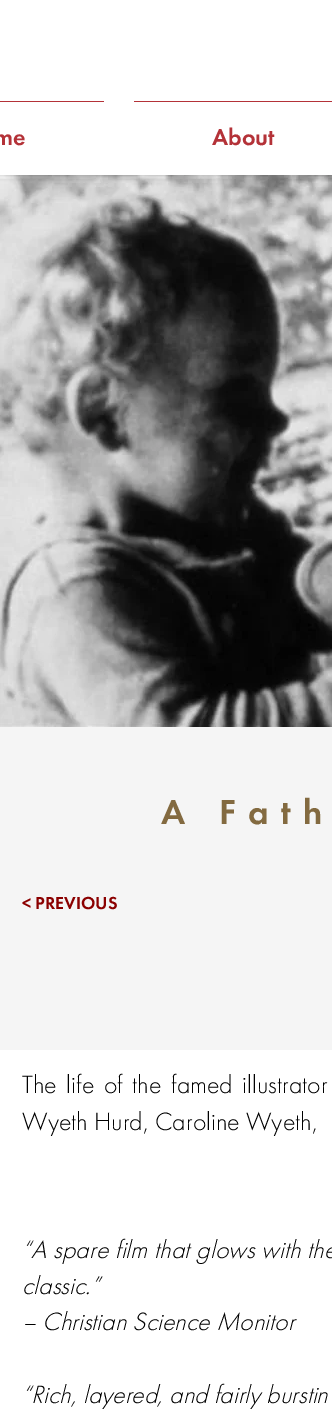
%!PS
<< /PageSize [332 1417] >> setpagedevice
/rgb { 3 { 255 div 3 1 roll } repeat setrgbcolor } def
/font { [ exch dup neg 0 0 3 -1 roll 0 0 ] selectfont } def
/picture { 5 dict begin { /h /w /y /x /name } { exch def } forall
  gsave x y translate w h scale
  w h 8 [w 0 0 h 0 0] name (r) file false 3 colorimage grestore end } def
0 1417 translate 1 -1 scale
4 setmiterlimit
255 255 255 rgb
0 0 332 1417 rectfill
180 50 56 rgb
0 101 104 1 rectfill
134 101 198 1 rectfill
(img/1.rgb) 0 175 332 552 picture
245 245 245 rgb
0 727 332 323 rectfill
/FuturaPT-Medium 24 font
180 50 56 rgb
-6 145 moveto (me) show
212 145 moveto (About) show
/FuturaPT-Medium 36 font
131 106 64 rgb
161 824 moveto 12.5 0 (A Fath) ashow
/FuturaPT-Medium 18 font
139 0 0 rgb
22 909 moveto (< PREVIOUS) show
/FuturaPT-Light 26 font
0 0 0 rgb
22 1093 moveto 3.5 0 32 (The life of the famed illustrator) widthshow
22 1130 moveto (Wyeth Hurd, Caroline Wyeth,) show
/FuturaPT-LightItalic 26 font
22 1258 moveto 1 0 32 (“A spare film that glows with the) widthshow
[
  [(classic.”) 22 1294]
  [(– Christian Science Monitor) 22 1330]
  [(“Rich, layered, and fairly burstin) 22 1403]
] { aload pop moveto show } forall
showpage
